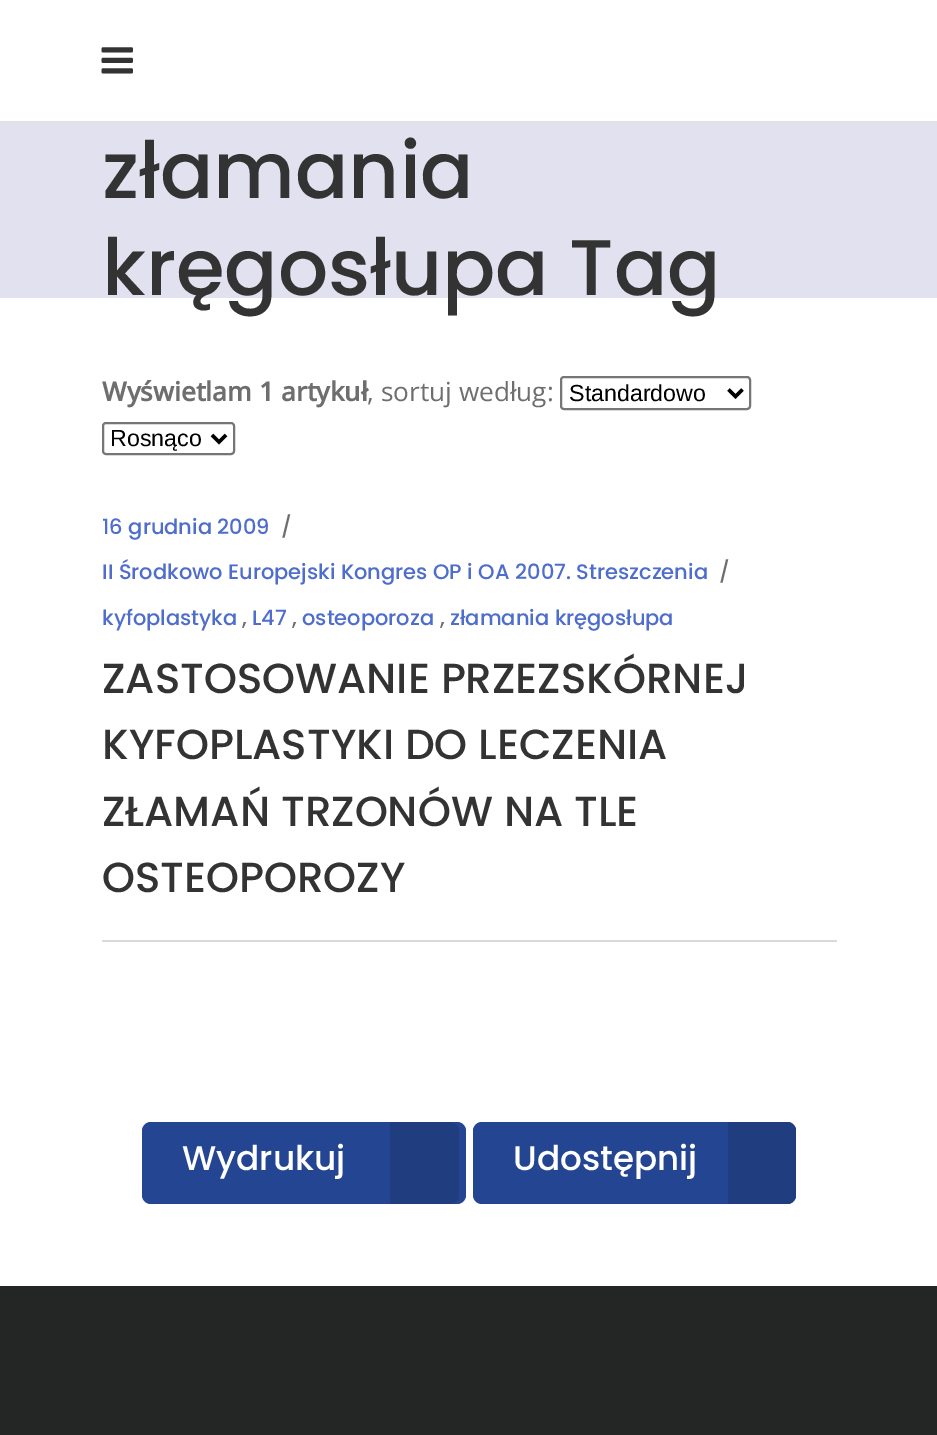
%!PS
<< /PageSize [937 1435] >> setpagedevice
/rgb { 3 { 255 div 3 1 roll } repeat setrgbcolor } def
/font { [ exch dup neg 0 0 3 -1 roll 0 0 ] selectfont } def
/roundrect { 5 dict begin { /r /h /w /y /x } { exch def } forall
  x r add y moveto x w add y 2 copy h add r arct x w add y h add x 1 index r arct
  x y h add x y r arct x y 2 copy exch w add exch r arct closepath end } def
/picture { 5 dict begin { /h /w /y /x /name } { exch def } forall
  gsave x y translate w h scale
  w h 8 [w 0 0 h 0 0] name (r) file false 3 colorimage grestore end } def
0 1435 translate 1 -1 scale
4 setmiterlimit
255 255 255 rgb
0 0 937 1435 rectfill
225 225 225 rgb
0 121 937 2 rectfill
(img/1.rgb) 101 47 32 27 picture
226 225 239 rgb
0 123 937 175 rectfill
118 118 118 rgb
2 setlinewidth
561 377 189 32 3 roundrect stroke
0 0 0 rgb
3.5 setlinewidth
728.5 389.5 moveto 735.5 396.5 lineto 742.5 389.5 lineto stroke
118 118 118 rgb
2 setlinewidth
103 423 131 31 3 roundrect stroke
0 0 0 rgb
3.5 setlinewidth
212 435 moveto 219 442 lineto 226 435 lineto stroke
218 218 218 rgb
102 940 735 2 rectfill
36 69 145 rgb
142 1122 324 82 9 roundrect fill
32 61 128 rgb
390 1122 moveto 450 1122 lineto 455 1122 459 1126 459 1131 curveto 459 1195 lineto 459 1200 455 1204 450 1204 curveto 390 1204 lineto closepath fill
36 69 145 rgb
473 1122 323 82 9 roundrect fill
32 61 128 rgb
728 1122 moveto 787 1122 lineto 792 1122 796 1126 796 1131 curveto 796 1195 lineto 796 1200 792 1204 787 1204 curveto 728 1204 lineto closepath fill
36 38 38 rgb
0 1286 937 149 rectfill
/Poppins-Medium 78.75 font
51 51 51 rgb
102 198 moveto (złamania) show
102 295 moveto (kręgosłupa Tag) show
/OpenSans-Bold 26.25 font
110 110 110 rgb
102 401 moveto (Wyświetlam 1 artykuł) show
/OpenSans-Regular 26.25 font
367 401 moveto (, sortuj według:) show
/LiberationSans-Regular 23.25 font
0 0 0 rgb
569 401 moveto (Standardowo) show
110 446 moveto (Rosnąco) show
/Poppins-Medium 21 font
78 109 204 rgb
102 534 moveto (16 grudnia 2009) show
110 110 110 rgb
281 534 moveto (/) show
78 109 204 rgb
102 579 moveto (II Środkowo Europejski Kongres OP i OA 2007. Streszczenia) show
110 110 110 rgb
719 579 moveto (/) show
78 109 204 rgb
102 625 moveto (kyfoplastyka) show
110 110 110 rgb
242 625 moveto (,) show
78 109 204 rgb
252 625 moveto (L47) show
110 110 110 rgb
292 625 moveto (,) show
78 109 204 rgb
302 625 moveto (osteoporoza) show
110 110 110 rgb
440 625 moveto (,) show
78 109 204 rgb
450 625 moveto (złamania kręgosłupa) show
/Poppins-Medium 42 font
51 51 51 rgb
[
  [(ZASTOSOWANIE PRZEZSKÓRNEJ) 102 693]
  [(KYFOPLASTYKI DO LECZENIA) 102 759]
  [(ZŁAMAŃ TRZONÓW NA TLE) 102 826]
  [(OSTEOPOROZY) 102 892]
] { aload pop moveto show } forall
/Poppins-Medium 34.25 font
255 255 255 rgb
182 1170 moveto (Wydrukuj) show
513 1170 moveto (Udostępnij) show
showpage
